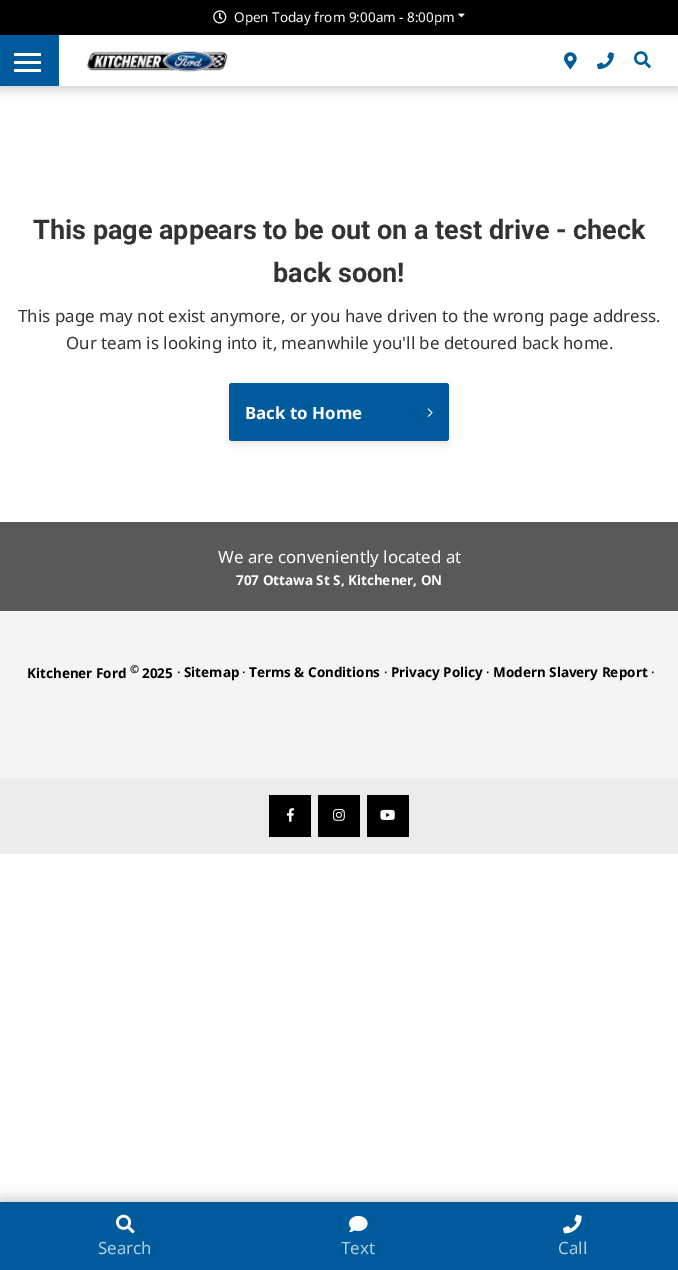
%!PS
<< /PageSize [678 1270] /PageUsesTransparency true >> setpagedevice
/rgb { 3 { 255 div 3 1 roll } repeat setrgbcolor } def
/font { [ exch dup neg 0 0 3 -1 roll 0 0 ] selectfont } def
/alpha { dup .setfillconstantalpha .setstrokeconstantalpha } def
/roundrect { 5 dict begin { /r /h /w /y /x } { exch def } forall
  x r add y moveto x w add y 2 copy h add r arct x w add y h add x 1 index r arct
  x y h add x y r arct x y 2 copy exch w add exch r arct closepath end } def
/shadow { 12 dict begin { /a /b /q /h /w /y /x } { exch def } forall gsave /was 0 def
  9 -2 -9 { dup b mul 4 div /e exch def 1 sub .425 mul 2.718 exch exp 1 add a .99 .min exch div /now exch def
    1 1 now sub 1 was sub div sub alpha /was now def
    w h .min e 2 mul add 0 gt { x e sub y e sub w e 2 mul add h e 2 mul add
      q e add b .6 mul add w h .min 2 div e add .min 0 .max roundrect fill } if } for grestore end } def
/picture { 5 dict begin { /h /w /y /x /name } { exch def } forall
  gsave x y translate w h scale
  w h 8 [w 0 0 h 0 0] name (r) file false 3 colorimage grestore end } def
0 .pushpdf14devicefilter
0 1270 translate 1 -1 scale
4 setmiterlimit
255 255 255 rgb
0 0 678 1270 rectfill
0 0 0 rgb
0 3 678 86 0 5 0.2 shadow
255 255 255 rgb
59 35 619 51 rectfill
0 0 0 rgb
0 0 678 35 rectfill
(img/1.rgb) 213 10 14 14 picture
(img/2.rgb) 458 13 7 5 picture
0 91 156 rgb
0 35 59 51 rectfill
255 255 255 rgb
14 61 27 3 1 roundrect fill
14 53 27 3 1 roundrect fill
14 69 27 3 1 roundrect fill
(img/3.rgb) 86 50 142 22 picture
(img/4.rgb) 564 52 13 18 picture
(img/5.rgb) 597 52 17 18 picture
(img/6.rgb) 634 51 17 18 picture
0 0 0 rgb
229 386 220 58 3 3.5 0.1 shadow
0 91 156 rgb
229 383 220 58 3 roundrect fill
(img/7.rgb) 427 408 6 9 picture
[
  [0 522 678 89 89 89 89]
  [0 611 678 167 244 244 244]
  [0 778 678 76 236 236 236]
  [269 795 42 42 0 0 0]
] { aload pop rgb rectfill } forall
(img/8.rgb) 287 808 7 14 picture
318 795 42 42 rectfill
(img/9.rgb) 333 809 12 12 picture
367 795 42 42 rectfill
(img/10.rgb) 380 809 15 11 picture
0 1199 678 68 0 7.5 0.2 shadow
0 91 156 rgb
0 1202 678 68 rectfill
(img/11.rgb) 116 1214 19 20 picture
(img/12.rgb) 349 1215 19 18 picture
(img/13.rgb) 563 1214 19 20 picture
/NotoSans-Regular 13.5 font
255 255 255 rgb
234 22 moveto (Open Today from 9:00am - 8:00pm) show
/Roboto-Bold 27 font
51 51 51 rgb
33 239 moveto (This page appears to be out on a test drive - check) show
273 282 moveto (back soon!) show
/NotoSans-Regular 16.9 font
18 322 moveto (This page may not exist anymore, or you have driven to the wrong page address.) show
66 349 moveto (Our team is looking into it, meanwhile you'll be detoured back home.) show
/NotoSans-Bold 16.9 font
255 255 255 rgb
245 419 moveto (Back to Home) show
/NotoSans-Regular 16.9 font
218 563 moveto (We are conveniently located at) show
/NotoSans-Bold 13.5 font
236 585 moveto (707 Ottawa St S, Kitchener, ON) show
0 0 0 rgb
27 678 moveto (Kitchener Ford) show
/NotoSans-Bold 11 font
130 673 moveto (©) show
/NotoSans-Bold 13.5 font
142 678 moveto (2025) show
/NotoSans-Regular 13.5 font
177 677 moveto (·) show
/NotoSans-Bold 13.5 font
184 677 moveto (Sitemap) show
/NotoSans-Regular 13.5 font
242 677 moveto (·) show
/NotoSans-Bold 13.5 font
249 677 moveto (Terms & Conditions) show
/NotoSans-Regular 13.5 font
384 677 moveto (·) show
/NotoSans-Bold 13.5 font
391 677 moveto (Privacy Policy) show
/NotoSans-Regular 13.5 font
486 677 moveto (·) show
/NotoSans-Bold 13.5 font
493 677 moveto (Modern Slavery Report) show
/NotoSans-Regular 13.5 font
651 677 moveto (·) show
/NotoSans-Regular 16.9 font
179 206 225 rgb
[
  [(Search) 98 1254]
  [(Text) 341 1254]
  [(Call) 558 1254]
] { aload pop moveto show } forall
.poppdf14devicefilter showpage
